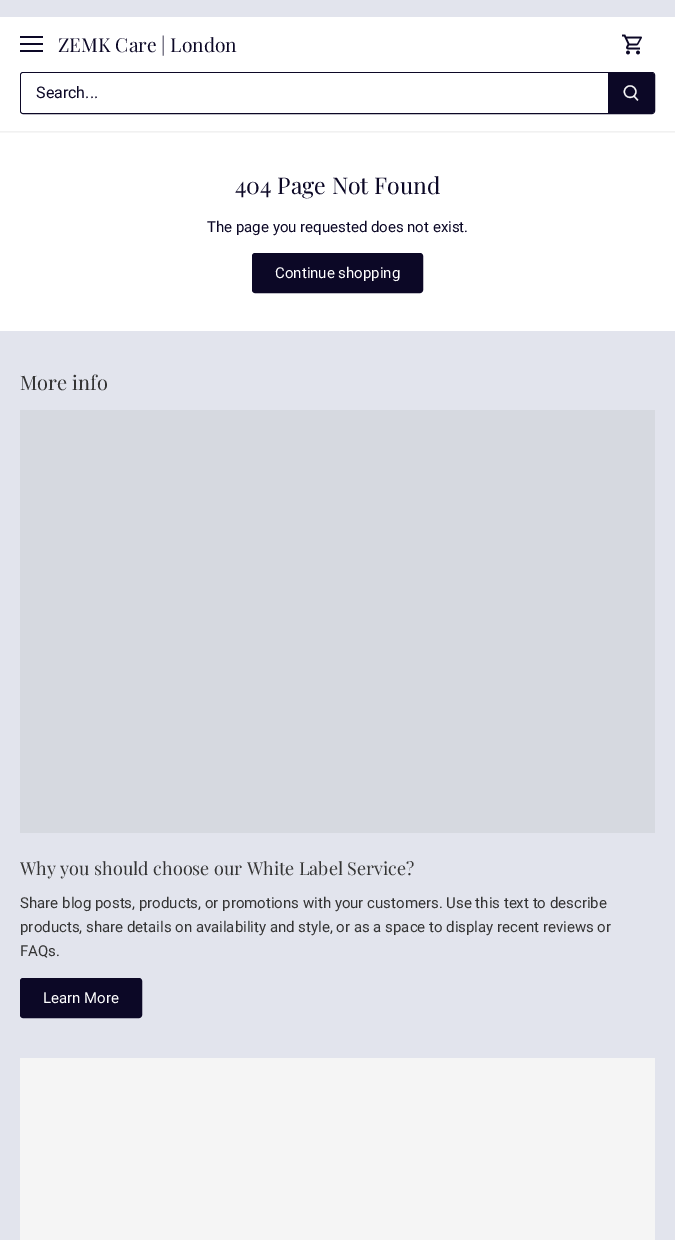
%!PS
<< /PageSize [675 1240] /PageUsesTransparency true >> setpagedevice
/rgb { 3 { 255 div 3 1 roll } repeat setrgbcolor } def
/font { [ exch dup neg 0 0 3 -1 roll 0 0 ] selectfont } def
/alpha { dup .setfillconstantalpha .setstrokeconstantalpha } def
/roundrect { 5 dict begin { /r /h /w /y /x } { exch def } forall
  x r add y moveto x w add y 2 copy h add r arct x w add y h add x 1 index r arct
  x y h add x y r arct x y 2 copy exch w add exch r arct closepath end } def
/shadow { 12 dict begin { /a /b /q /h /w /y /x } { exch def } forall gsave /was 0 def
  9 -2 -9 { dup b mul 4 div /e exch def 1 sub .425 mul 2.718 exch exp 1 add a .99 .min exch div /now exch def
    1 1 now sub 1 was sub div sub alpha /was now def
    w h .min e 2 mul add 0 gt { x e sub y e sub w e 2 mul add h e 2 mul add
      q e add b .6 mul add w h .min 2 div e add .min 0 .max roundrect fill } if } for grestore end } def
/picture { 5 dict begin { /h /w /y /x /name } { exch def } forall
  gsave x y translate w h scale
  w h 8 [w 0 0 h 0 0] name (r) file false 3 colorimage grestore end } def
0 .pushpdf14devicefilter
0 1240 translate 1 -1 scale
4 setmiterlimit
255 255 255 rgb
0 0 675 1240 rectfill
gsave
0 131 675 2 rectclip
0 0 0 rgb
-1 16 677 116 0 1.5 0.08 shadow
grestore
[
  [0 0 675 17 226 228 237]
  [20 36 23 2 12 8 38]
  [20 43 23 2 12 8 38]
  [20 50 23 2 12 8 38]
] { aload pop rgb rectfill } forall
(img/1.rgb) 622 34 20 21 picture
20.5 72.5 634 41 2.5 roundrect stroke
255 255 255 rgb
24 73 moveto 609 73 lineto 609 113 lineto 24 113 lineto 22.5 113 21 111.5 21 110 curveto 21 76 lineto 21 74.5 22.5 73 24 73 curveto closepath fill
12 8 38 rgb
608 73 moveto 652 73 lineto 653 73 654 74 654 75 curveto 654 111 lineto 654 112 653 113 652 113 curveto 608 113 lineto closepath fill
(img/2.rgb) 623 85 16 16 picture
253 254 169 38 2 roundrect gsave fill grestore
2 setlinewidth
stroke
226 228 237 rgb
0 331 675 909 rectfill
214 217 224 rgb
20 410 635 423 rectfill
12 8 38 rgb
21 979 120 38 2 roundrect gsave fill grestore
stroke
245 245 245 rgb
20 1058 635 182 rectfill
/PlayfairDisplay-Regular 19.25 font
12 8 38 rgb
58 52 moveto (ZEMK Care | London) show
/Roboto-Regular 16 font
36 98 moveto (Search...) show
/PlayfairDisplay-Regular 23 font
235 194 moveto (404 Page Not Found) show
/Roboto-Regular 15 font
207 232 moveto (The page you requested does not exist.) show
255 255 255 rgb
275 278 moveto (Continue shopping) show
/PlayfairDisplay-Regular 20 font
52 52 52 rgb
20 390 moveto (More info) show
/PlayfairDisplay-Regular 18 font
20 875 moveto (Why you should choose our White Label Service?) show
/Roboto-Regular 15 font
[
  [(Share blog posts, products, or promotions with your customers. Use this text to describe) 20 908]
  [(products, share details on availability and style, or as a space to display recent reviews or) 20 932]
  [(FAQs.) 20 956]
] { aload pop moveto show } forall
255 255 255 rgb
43 1003 moveto (Learn More) show
.poppdf14devicefilter showpage
